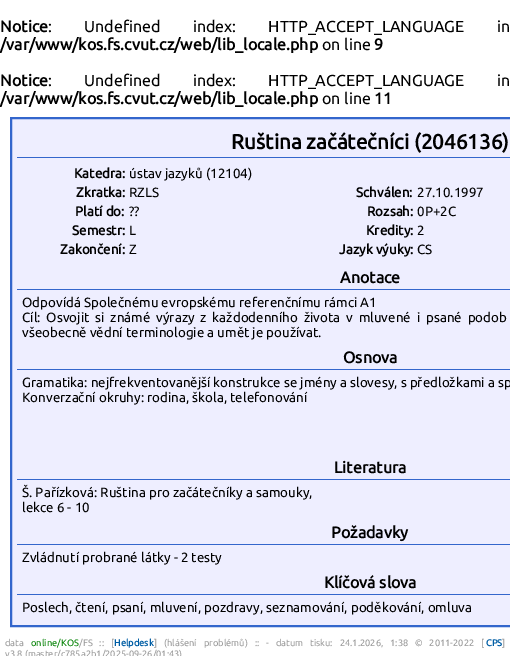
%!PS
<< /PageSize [510 656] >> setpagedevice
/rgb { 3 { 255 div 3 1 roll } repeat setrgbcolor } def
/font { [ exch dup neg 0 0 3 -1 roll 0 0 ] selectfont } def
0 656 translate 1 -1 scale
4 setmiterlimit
255 255 255 rgb
0 0 510 656 rectfill
238 238 255 rgb
11 118 moveto 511 118 lineto 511 626 lineto 11 626 lineto closepath gsave fill grestore
51 102 204 rgb
2 setlinewidth
stroke
[
  [17 157 493 1 51 102 204]
  [17 289 493 1 51 102 204]
  [17 369 493 1 51 102 204]
  [17 479 493 1 51 102 204]
  [17 544 493 1 51 102 204]
  [17 594 493 1 51 102 204]
] { aload pop rgb rectfill } forall
/Ubuntu-Bold 16 font
0 0 0 rgb
0 32 moveto (Notice) show
/Ubuntu-Regular 16 font
48 32 moveto (:) show
84 32 moveto 28.5 0 32 (Undefined index: HTTP_ACCEPT_LANGUAGE in) widthshow
/Ubuntu-Bold 16 font
0 50 moveto (/var/www/kos.fs.cvut.cz/web/lib_locale.php) show
/Ubuntu-Regular 16 font
322 50 moveto (on line) show
/Ubuntu-Bold 16 font
374 50 moveto (9) show
0 86 moveto (Notice) show
/Ubuntu-Regular 16 font
48 86 moveto (:) show
84 86 moveto 28.5 0 32 (Undefined index: HTTP_ACCEPT_LANGUAGE in) widthshow
/Ubuntu-Bold 16 font
0 104 moveto (/var/www/kos.fs.cvut.cz/web/lib_locale.php) show
/Ubuntu-Regular 16 font
322 104 moveto (on line) show
/Ubuntu-Bold 16 font
374 104 moveto (11) show
/Ubuntu-Bold 20.75 font
231 149 moveto (Ruština začátečníci \(2046136\)) show
/Ubuntu-Bold 13.35 font
74 178 moveto (Katedra:) show
/Ubuntu-Regular 13.35 font
129 178 moveto (ústav jazyků \(12104\)) show
/Ubuntu-Bold 13.35 font
76 197 moveto (Zkratka:) show
/Ubuntu-Regular 13.35 font
129 197 moveto (RZLS) show
/Ubuntu-Bold 13.35 font
356 197 moveto (Schválen:) show
/Ubuntu-Regular 13.35 font
417 197 moveto (27.10.1997) show
/Ubuntu-Bold 13.35 font
75 216 moveto (Platí do:) show
/Ubuntu-Regular 13.35 font
129 216 moveto (??) show
/Ubuntu-Bold 13.35 font
367 216 moveto (Rozsah:) show
/Ubuntu-Regular 13.35 font
417 216 moveto (0P+2C) show
/Ubuntu-Bold 13.35 font
72 235 moveto (Semestr:) show
/Ubuntu-Regular 13.35 font
129 235 moveto (L) show
/Ubuntu-Bold 13.35 font
366 235 moveto (Kredity:) show
/Ubuntu-Regular 13.35 font
417 235 moveto (2) show
/Ubuntu-Bold 13.35 font
60 254 moveto (Zakončení:) show
/Ubuntu-Regular 13.35 font
129 254 moveto (Z) show
/Ubuntu-Bold 13.35 font
339 254 moveto (Jazyk výuky:) show
/Ubuntu-Regular 13.35 font
417 254 moveto (CS) show
/Ubuntu-Bold 16 font
340 283 moveto (Anotace) show
/Ubuntu-Regular 13.35 font
22 307 moveto (Odpovídá Společnému evropskému referenčnímu rámci A1) show
22 322 moveto 2.75 0 32 (Cíl: Osvojit si známé výrazy z každodenního života v mluvené i psané podob) widthshow
22 337 moveto (všeobecně vědní terminologie a umět je používat.) show
/Ubuntu-Bold 16 font
343 363 moveto (Osnova) show
/Ubuntu-Regular 13.35 font
22 387 moveto (Gramatika: nejfrekventovanější konstrukce se jmény a slovesy, s předložkami a sp) show
22 402 moveto (Konverzační okruhy: rodina, škola, telefonování) show
/Ubuntu-Bold 16 font
334 473 moveto (Literatura) show
/Ubuntu-Regular 13.35 font
22 497 moveto (Š. Pařízková: Ruština pro začátečníky a samouky,) show
22 512 moveto (lekce 6 - 10) show
/Ubuntu-Bold 16 font
331 538 moveto (Požadavky) show
/Ubuntu-Regular 13.35 font
22 562 moveto (Zvládnutí probrané látky - 2 testy) show
/Ubuntu-Bold 16 font
324 588 moveto (Klíčová slova) show
/Ubuntu-Regular 13.35 font
22 612 moveto (Poslech, čtení, psaní, mluvení, pozdravy, seznamování, poděkování, omluva) show
/Ubuntu-Regular 9.3 font
153 153 153 rgb
5 646 moveto (data) show
0 128 0 rgb
31 646 moveto (online/KOS) show
153 153 153 rgb
79 646 moveto 4.75 0 32 (/FS :: [) widthshow
/Ubuntu-Bold 9.3 font
0 94 165 rgb
114 646 moveto (Helpdesk) show
/Ubuntu-Regular 9.3 font
153 153 153 rgb
154 646 moveto 4.75 0 32 (] \(hlášení problémů\) ::) widthshow
266 646 moveto 4.75 0 32 (- datum tisku: 24.1.2026, 1:38 © 2011-2022 [) widthshow
/Ubuntu-Bold 9.3 font
0 94 165 rgb
486 646 moveto (CPS) show
/Ubuntu-Regular 9.3 font
153 153 153 rgb
502 646 moveto (]) show
5 657 moveto (v3.8 \(master/c785a2b1/2025-09-26/01:43\)) show
showpage
